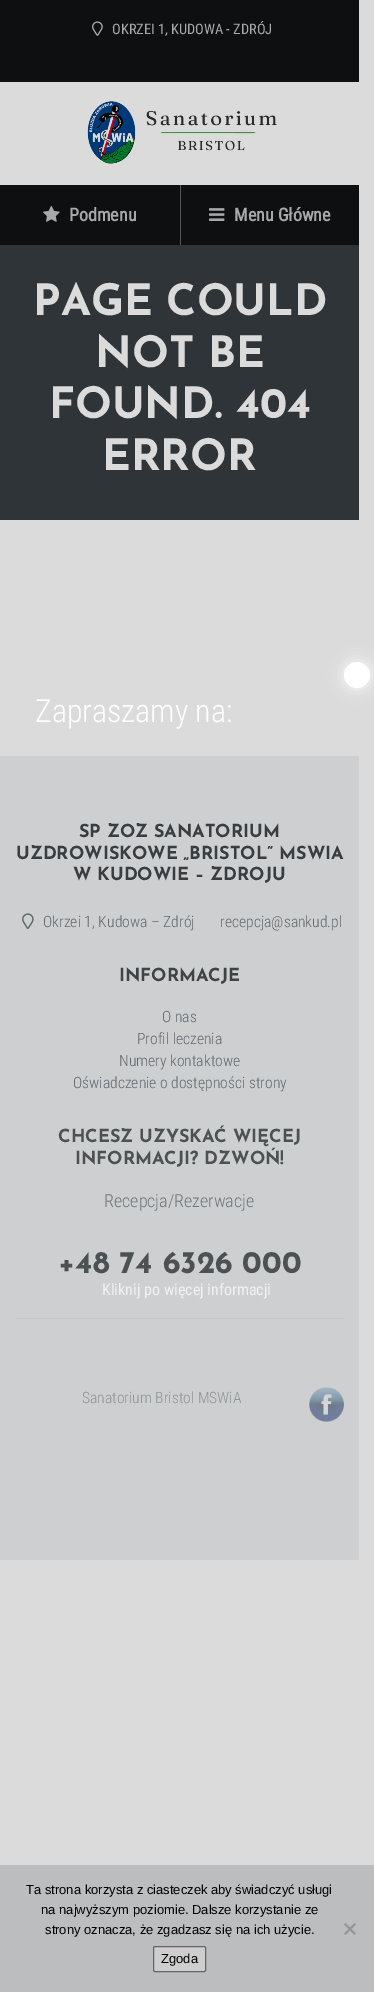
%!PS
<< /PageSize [374 1992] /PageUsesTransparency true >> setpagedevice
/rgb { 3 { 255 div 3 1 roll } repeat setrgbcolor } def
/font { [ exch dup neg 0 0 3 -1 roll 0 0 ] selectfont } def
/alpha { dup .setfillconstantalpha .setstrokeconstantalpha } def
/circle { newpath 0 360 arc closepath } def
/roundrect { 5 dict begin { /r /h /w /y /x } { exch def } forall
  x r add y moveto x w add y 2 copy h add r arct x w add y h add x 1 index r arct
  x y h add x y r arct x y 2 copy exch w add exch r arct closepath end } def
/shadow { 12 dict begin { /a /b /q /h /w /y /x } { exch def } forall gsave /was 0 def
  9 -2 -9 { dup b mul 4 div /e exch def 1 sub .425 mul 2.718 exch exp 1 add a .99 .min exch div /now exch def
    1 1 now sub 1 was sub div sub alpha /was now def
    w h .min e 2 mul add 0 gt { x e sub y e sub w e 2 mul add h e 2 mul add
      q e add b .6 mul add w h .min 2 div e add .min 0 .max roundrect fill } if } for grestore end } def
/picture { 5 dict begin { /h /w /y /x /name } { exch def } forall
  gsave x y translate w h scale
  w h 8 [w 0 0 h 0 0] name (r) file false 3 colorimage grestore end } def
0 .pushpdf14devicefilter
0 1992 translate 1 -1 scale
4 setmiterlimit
219 219 219 rgb
0 0 374 1992 rectfill
46 52 55 rgb
0 245 359 275 rectfill
14 15 16 rgb
0 0 359 245 rectfill
(img/1.rgb) 92 21 11 15 picture
219 219 219 rgb
0 82 359 103 rectfill
(img/2.rgb) 87 101 190 63 picture
(img/3.rgb) 43 206 17 16 picture
86 87 88 rgb
180 185 1 60 rectfill
(img/4.rgb) 209 208 16 13 picture
206 207 208 rgb
0 756 359 804 rectfill
(img/5.rgb) 22 913 12 16 picture
198 199 200 rgb
15 1318 329 1 rectfill
(img/6.rgb) 309 1387 35 35 picture
255 255 255 rgb
343 661 28 28 14 7.5 0.75 shadow
357 675 12 circle gsave fill grestore
2 setlinewidth
stroke
188 189 190 rgb
0 1865 374 127 rectfill
150 150 151 rgb
354.5 1923 moveto 356 1924.5 lineto 345.5 1935 lineto 344 1933.5 lineto closepath fill
344 1924.5 moveto 345.5 1923 lineto 356 1933.5 lineto 354.5 1935 lineto closepath fill
206 206 206 rgb
153.5 1946.5 52 25 1.5 roundrect gsave fill grestore
101 101 101 rgb
1 setlinewidth
stroke
/RobotoCondensed-Regular 14.4 font
168 169 169 rgb
112 34 moveto (OKRZEI 1, KUDOWA - ZDRÓJ) show
/RobotoCondensed-Bold 18 font
69 221 moveto (Podmenu) show
234 221 moveto (Menu Główne) show
/JosefinSans-Bold 43.25 font
219 219 219 rgb
[
  [(PAGE COULD) 33 315]
  [(NOT BE) 95 367]
  [(FOUND. 404) 49 418]
  [(ERROR) 102 470]
] { aload pop moveto show } forall
/JosefinSans-Bold 18 font
55 61 64 rgb
[
  [(SP ZOZ SANATORIUM) 79 837]
  [(UZDROWISKOWE „BRISTOL” MSWIA) 16 859]
  [(W KUDOWIE – ZDROJU) 73 880]
] { aload pop moveto show } forall
/RobotoCondensed-Light 15.6 font
95 104 110 rgb
43 927 moveto (Okrzei 1, Kudowa – Zdrój) show
220 927 moveto (recepcja@sankud.pl) show
/JosefinSans-Bold 18 font
62 68 70 rgb
119 981 moveto (INFORMACJE) show
/RobotoCondensed-Light 15.6 font
95 104 110 rgb
[
  [(O nas) 162 1022]
  [(Profil leczenia) 137 1044]
  [(Numery kontaktowe) 119 1066]
  [(Oświadczenie o dostępności strony) 73 1088]
] { aload pop moveto show } forall
/JosefinSans-Bold 18 font
76 81 83 rgb
58 1142 moveto (CHCESZ UZYSKAĆ WIĘCEJ) show
75 1164 moveto (INFORMACJI? DZWOŃ!) show
/RobotoCondensed-Light 18 font
109 118 123 rgb
104 1207 moveto (Recepcja/Rezerwacje) show
/JosefinSans-Bold 31.25 font
76 81 83 rgb
58 1273 moveto (+48 74 6326 000) show
/RobotoCondensed-Light 15.6 font
141 147 151 rgb
82 1403 moveto (Sanatorium Bristol MSWiA) show
/RobotoCondensed-Light 32 font
255 255 255 rgb
35 722 moveto (Zapraszamy na:) show
/RobotoCondensed-Regular 16 font
240 241 242 rgb
102 1295 moveto (Kliknij po więcej informacji) show
/LiberationSans-Regular 13 font
0 0 0 rgb
[
  [(Ta strona korzysta z ciasteczek aby świadczyć usługi) 26 1894]
  [(na najwyższym poziomie. Dalsze korzystanie ze) 41 1914]
  [(strony oznacza, że zgadzasz się na ich użycie.) 45 1934]
  [(Zgoda) 161 1963]
] { aload pop moveto show } forall
.poppdf14devicefilter showpage
